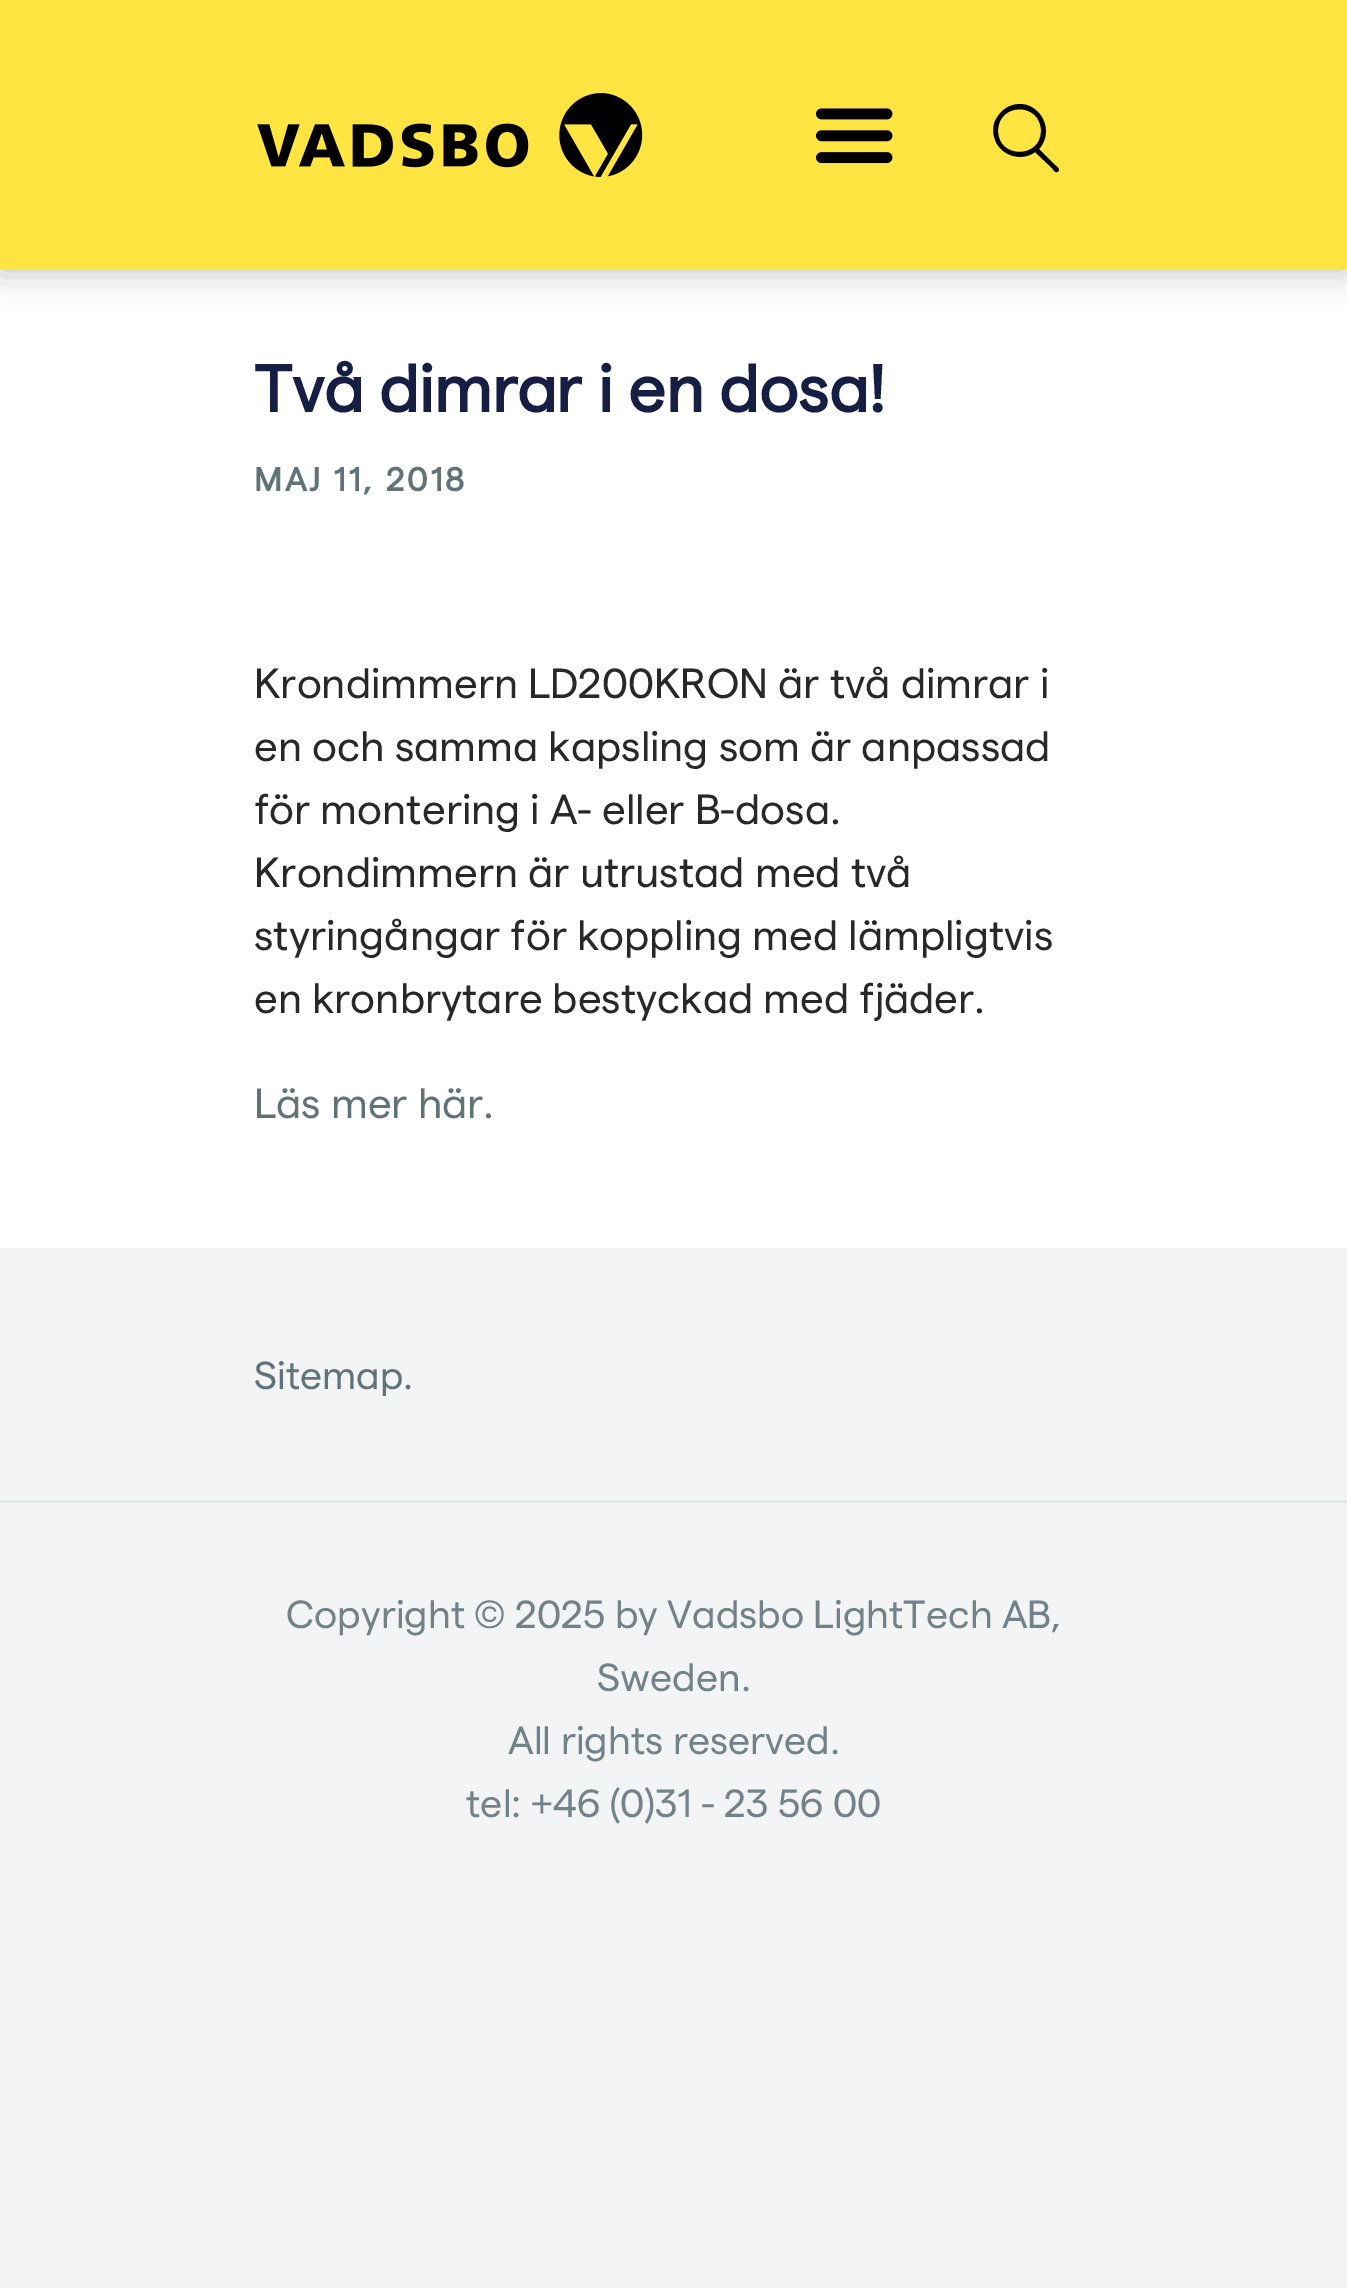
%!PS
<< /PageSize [1347 2288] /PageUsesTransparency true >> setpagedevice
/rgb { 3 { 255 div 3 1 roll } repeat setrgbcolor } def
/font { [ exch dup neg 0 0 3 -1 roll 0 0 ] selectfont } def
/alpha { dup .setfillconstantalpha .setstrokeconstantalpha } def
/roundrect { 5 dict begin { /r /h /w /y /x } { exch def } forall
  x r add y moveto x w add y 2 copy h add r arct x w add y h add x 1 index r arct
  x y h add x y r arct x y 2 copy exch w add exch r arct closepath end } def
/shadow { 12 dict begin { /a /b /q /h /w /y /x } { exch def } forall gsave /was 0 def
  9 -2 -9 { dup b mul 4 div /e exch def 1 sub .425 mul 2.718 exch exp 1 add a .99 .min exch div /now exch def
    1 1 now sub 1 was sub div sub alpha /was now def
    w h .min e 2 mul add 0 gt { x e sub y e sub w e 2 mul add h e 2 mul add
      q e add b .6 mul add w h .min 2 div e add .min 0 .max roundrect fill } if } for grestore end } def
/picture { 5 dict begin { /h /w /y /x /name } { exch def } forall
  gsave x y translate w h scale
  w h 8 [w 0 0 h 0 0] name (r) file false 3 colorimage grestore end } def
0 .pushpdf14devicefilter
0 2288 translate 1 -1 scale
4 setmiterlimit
242 244 245 rgb
0 0 1347 2288 rectfill
255 255 255 rgb
0 270 1347 978 rectfill
0 0 0 rgb
0 6 1347 270 0 15 0.2 shadow
255 228 66 rgb
0 0 1347 270 rectfill
(img/1.rgb) 257 93 386 84 picture
(img/2.rgb) 816 108 77 56 picture
0 0 0 rgb
1039 149 moveto 1058 127 1034 94 1008 107 curveto 1002 110 998 115 995 121 curveto 992 128 993 137 997 144 curveto 1005 157 1023 161 1035 152 curveto 1052 168 lineto 1053 169 1055 173 1057 172 curveto 1062 170 1056 166 1055 165 curveto closepath 998 131 moveto 998 102 1041 102 1041 131 curveto 1041 159 998 159 998 131 curveto closepath fill
227 231 232 rgb
0 1500 1347 3 rectfill
/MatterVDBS-Bold 66 font
23 30 67 rgb
254 412 moveto (Två dimrar i en dosa!) show
/MatterVDBS-Bold 33 font
97 114 120 rgb
254 491 moveto 3 0 (MAJ 11, 2018) ashow
/MatterVDBS-Regular 42 font
40 40 40 rgb
[
  [(Krondimmern LD200KRON är två dimrar i) 254 698]
  [(en och samma kapsling som är anpassad) 254 761]
  [(för montering i A- eller B-dosa.) 254 824]
  [(Krondimmern är utrustad med två) 254 887]
  [(styringångar för koppling med lämpligtvis) 254 950]
  [(en kronbrytare bestyckad med fjäder.) 254 1013]
] { aload pop moveto show } forall
97 114 120 rgb
254 1118 moveto (Läs mer här.) show
/MatterVDBS-Regular 39 font
254 1389 moveto (Sitemap.) show
/MatterVDBS-Regular 39.25 font
114 130 136 rgb
286 1628 moveto -0.25 0 32 (Copyright © 2025 by Vadsbo LightTech AB,) widthshow
[
  [(Sweden.) 597 1691]
  [(All rights reserved.) 508 1754]
  [(tel: +46 \(0\)31 - 23 56 00) 466 1817]
] { aload pop moveto show } forall
.poppdf14devicefilter showpage
